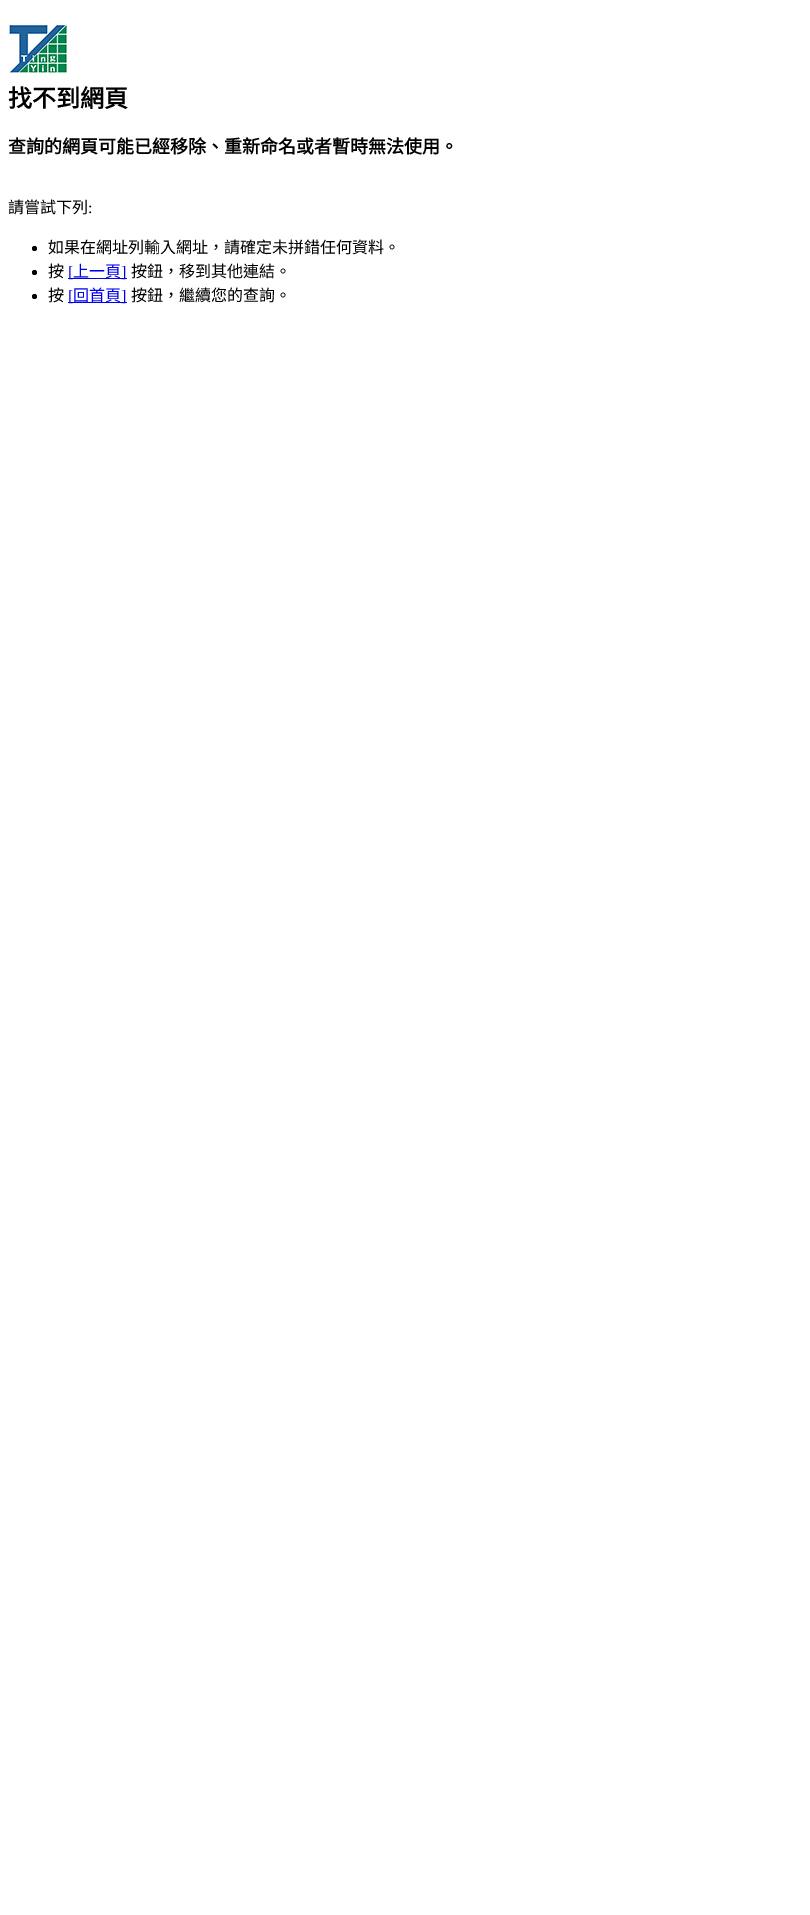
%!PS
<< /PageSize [810 1915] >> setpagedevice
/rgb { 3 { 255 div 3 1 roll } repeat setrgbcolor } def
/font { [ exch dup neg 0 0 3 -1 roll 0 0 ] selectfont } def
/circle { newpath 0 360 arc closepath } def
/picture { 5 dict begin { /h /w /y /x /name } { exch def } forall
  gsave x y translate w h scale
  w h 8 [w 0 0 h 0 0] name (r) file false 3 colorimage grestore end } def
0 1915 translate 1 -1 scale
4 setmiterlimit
255 255 255 rgb
0 0 810 1915 rectfill
(img/1.rgb) 9 22 58 51 picture
0 0 0 rgb
34.5 248.5 2.5 circle fill
34.5 272.5 2.5 circle fill
0 0 238 rgb
68 278 59 1 rectfill
0 0 0 rgb
34.5 296.5 2.5 circle fill
0 0 238 rgb
68 302 59 1 rectfill
/NotoSansCJKTC-Bold 24 font
0 0 0 rgb
8 107 moveto (找不到網頁) show
/NotoSansCJKTC-Bold 18 font
8 153 moveto (查詢的網頁可能已經移除、重新命名或者暫時無法使用。) show
/NotoSansCJKTC-Regular 16 font
8 213 moveto (請嘗試下列) show
/LiberationSerif-Regular 16 font
88 213 moveto (:) show
/NotoSansCJKTC-Regular 16 font
48 253 moveto (如果在網址列輸入網址，請確定未拼錯任何資料。) show
48 277 moveto (按) show
/LiberationSerif-Regular 16 font
0 0 238 rgb
68 277 moveto ([) show
/NotoSansCJKTC-Regular 16 font
73 277 moveto (上一頁) show
/LiberationSerif-Regular 16 font
121 277 moveto (]) show
/NotoSansCJKTC-Regular 16 font
0 0 0 rgb
131 277 moveto (按鈕，移到其他連結。) show
48 301 moveto (按) show
/LiberationSerif-Regular 16 font
0 0 238 rgb
68 301 moveto ([) show
/NotoSansCJKTC-Regular 16 font
73 301 moveto (回首頁) show
/LiberationSerif-Regular 16 font
121 301 moveto (]) show
/NotoSansCJKTC-Regular 16 font
0 0 0 rgb
131 301 moveto (按鈕，繼續您的查詢。) show
showpage
